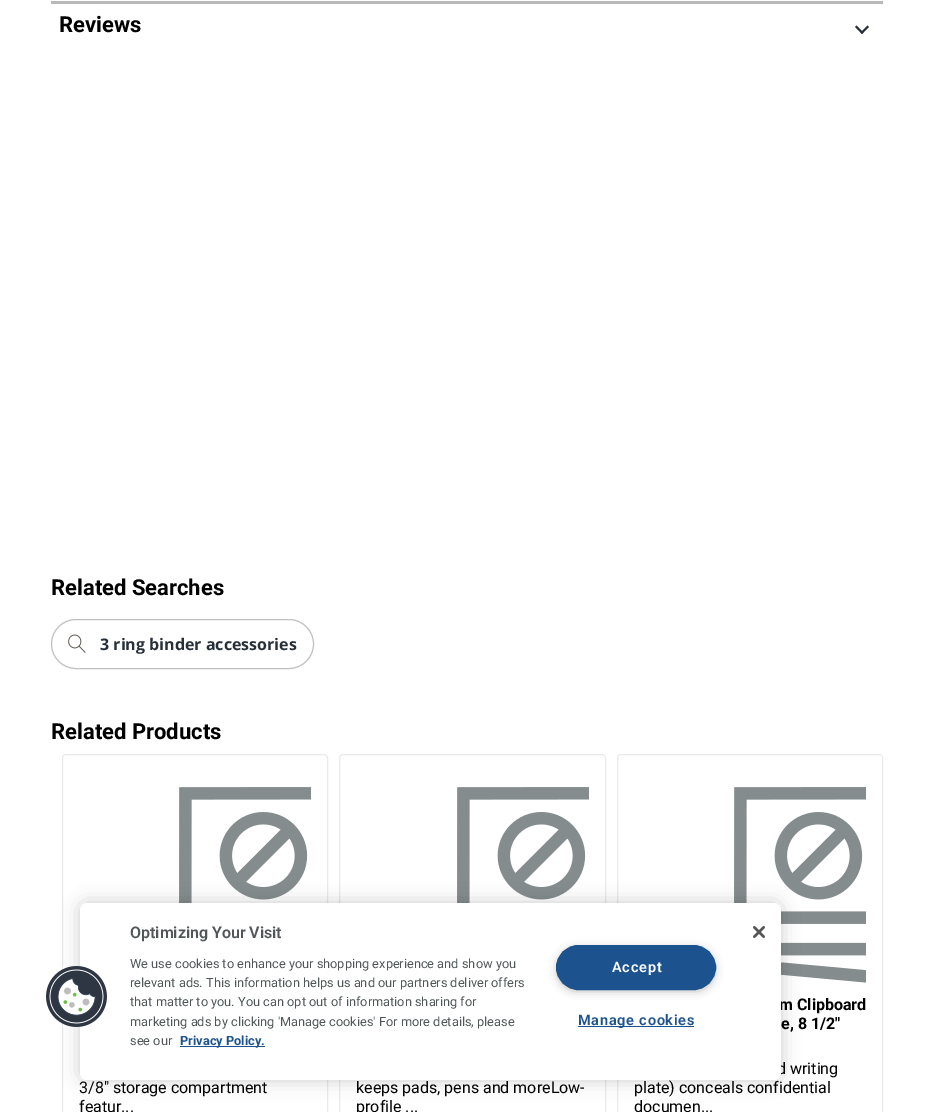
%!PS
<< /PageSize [934 1112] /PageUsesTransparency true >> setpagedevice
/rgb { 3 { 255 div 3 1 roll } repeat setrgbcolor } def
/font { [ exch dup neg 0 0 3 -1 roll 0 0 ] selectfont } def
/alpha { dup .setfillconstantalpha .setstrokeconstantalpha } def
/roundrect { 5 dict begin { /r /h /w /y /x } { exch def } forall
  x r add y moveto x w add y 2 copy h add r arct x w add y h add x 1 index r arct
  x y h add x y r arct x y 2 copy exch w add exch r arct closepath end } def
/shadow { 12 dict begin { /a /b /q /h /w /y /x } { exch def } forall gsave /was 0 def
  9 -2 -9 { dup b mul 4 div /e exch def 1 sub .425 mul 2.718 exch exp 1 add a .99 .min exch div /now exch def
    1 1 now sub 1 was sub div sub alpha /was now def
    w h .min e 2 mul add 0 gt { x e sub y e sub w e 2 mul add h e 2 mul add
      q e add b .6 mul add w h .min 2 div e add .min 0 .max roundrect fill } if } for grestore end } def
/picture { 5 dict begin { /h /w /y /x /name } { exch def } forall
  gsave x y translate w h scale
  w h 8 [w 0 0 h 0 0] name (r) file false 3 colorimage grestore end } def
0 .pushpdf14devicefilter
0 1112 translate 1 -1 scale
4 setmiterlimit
255 255 255 rgb
0 0 934 1112 rectfill
184 184 184 rgb
51 1 832 3 rectfill
39 48 57 rgb
860.5 32.5 moveto 867.5 25.5 lineto 869 27 lineto 862 34 lineto closepath fill
855 27 moveto 856.5 25.5 lineto 863.5 32.5 lineto 862 34 lineto closepath fill
190 192 195 rgb
51.5 619.5 262 49 24.5 roundrect stroke
(img/1.rgb) 68 634 18 19 picture
233 234 235 rgb
62.5 754.5 265 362 3.5 roundrect stroke
(img/2.rgb) 179 787 132 116 picture
339.5 754.5 266 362 3.5 roundrect stroke
(img/2.rgb) 457 787 132 116 picture
617.5 754.5 265 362 3.5 roundrect stroke
(img/3.rgb) 734 787 132 196 picture
0 0 0 rgb
80 903 701 177 7 9 0.2 shadow
/Roboto-Bold 22 font
59 32 moveto (Reviews) show
51 595 moveto (Related Searches) show
/OpenSans-Bold 16 font
39 48 57 rgb
100 650 moveto (3 ring binder accessories) show
/Roboto-Bold 22 font
0 0 0 rgb
51 739 moveto (Related Products) show
/Roboto-Regular 16 font
[
  [(3/8" storage compartment) 79 1093]
  [(featur...) 79 1112]
  [(keeps pads, pens and moreLow-) 356 1093]
  [(profile ...) 356 1112]
] { aload pop moveto show } forall
/Roboto-Bold 16 font
779 1010 moveto (m Clipboard) show
781 1029 moveto (e, 8 1/2") show
/Roboto-Regular 16 font
[
  [(d writing) 777 1074]
  [(plate\) conceals confidential) 634 1093]
  [(documen...) 634 1112]
] { aload pop moveto show } forall
255 255 255 rgb
80 903 701 177 7 roundrect fill
(img/4.rgb) 46 966 61 61 picture
/Roboto-SemiBold 16 font
81 87 88 rgb
130 938 moveto (Optimizing Your Visit) show
/Roboto-Regular 12.8 font
[
  [(We use cookies to enhance your shopping experience and show you) 130 968]
  [(relevant ads. This information helps us and our partners deliver offers) 130 987]
  [(that matter to you. You can opt out of information sharing for) 130 1006]
  [(marketing ads by clicking 'Manage cookies' For more details, please) 130 1026]
  [(see our) 130 1045]
] { aload pop moveto show } forall
28 82 141 rgb
180 1046 85 1 rectfill
/Roboto-Bold 12.8 font
180 1045 moveto (Privacy Policy.) show
153 153 153 rgb
559 950 154 39 19.5 5 1 shadow
28 82 141 rgb
556.5 945.5 159 44 22 roundrect gsave fill grestore
stroke
/Roboto-SemiBold 14.5 font
255 255 255 rgb
612 972 moveto 0.75 0 (Accept) ashow
28 82 141 rgb
578 1026 116 1 rectfill
578 1025 moveto 0.75 0 (Manage cookies) ashow
(img/5.rgb) 753 926 12 12 picture
.poppdf14devicefilter showpage
